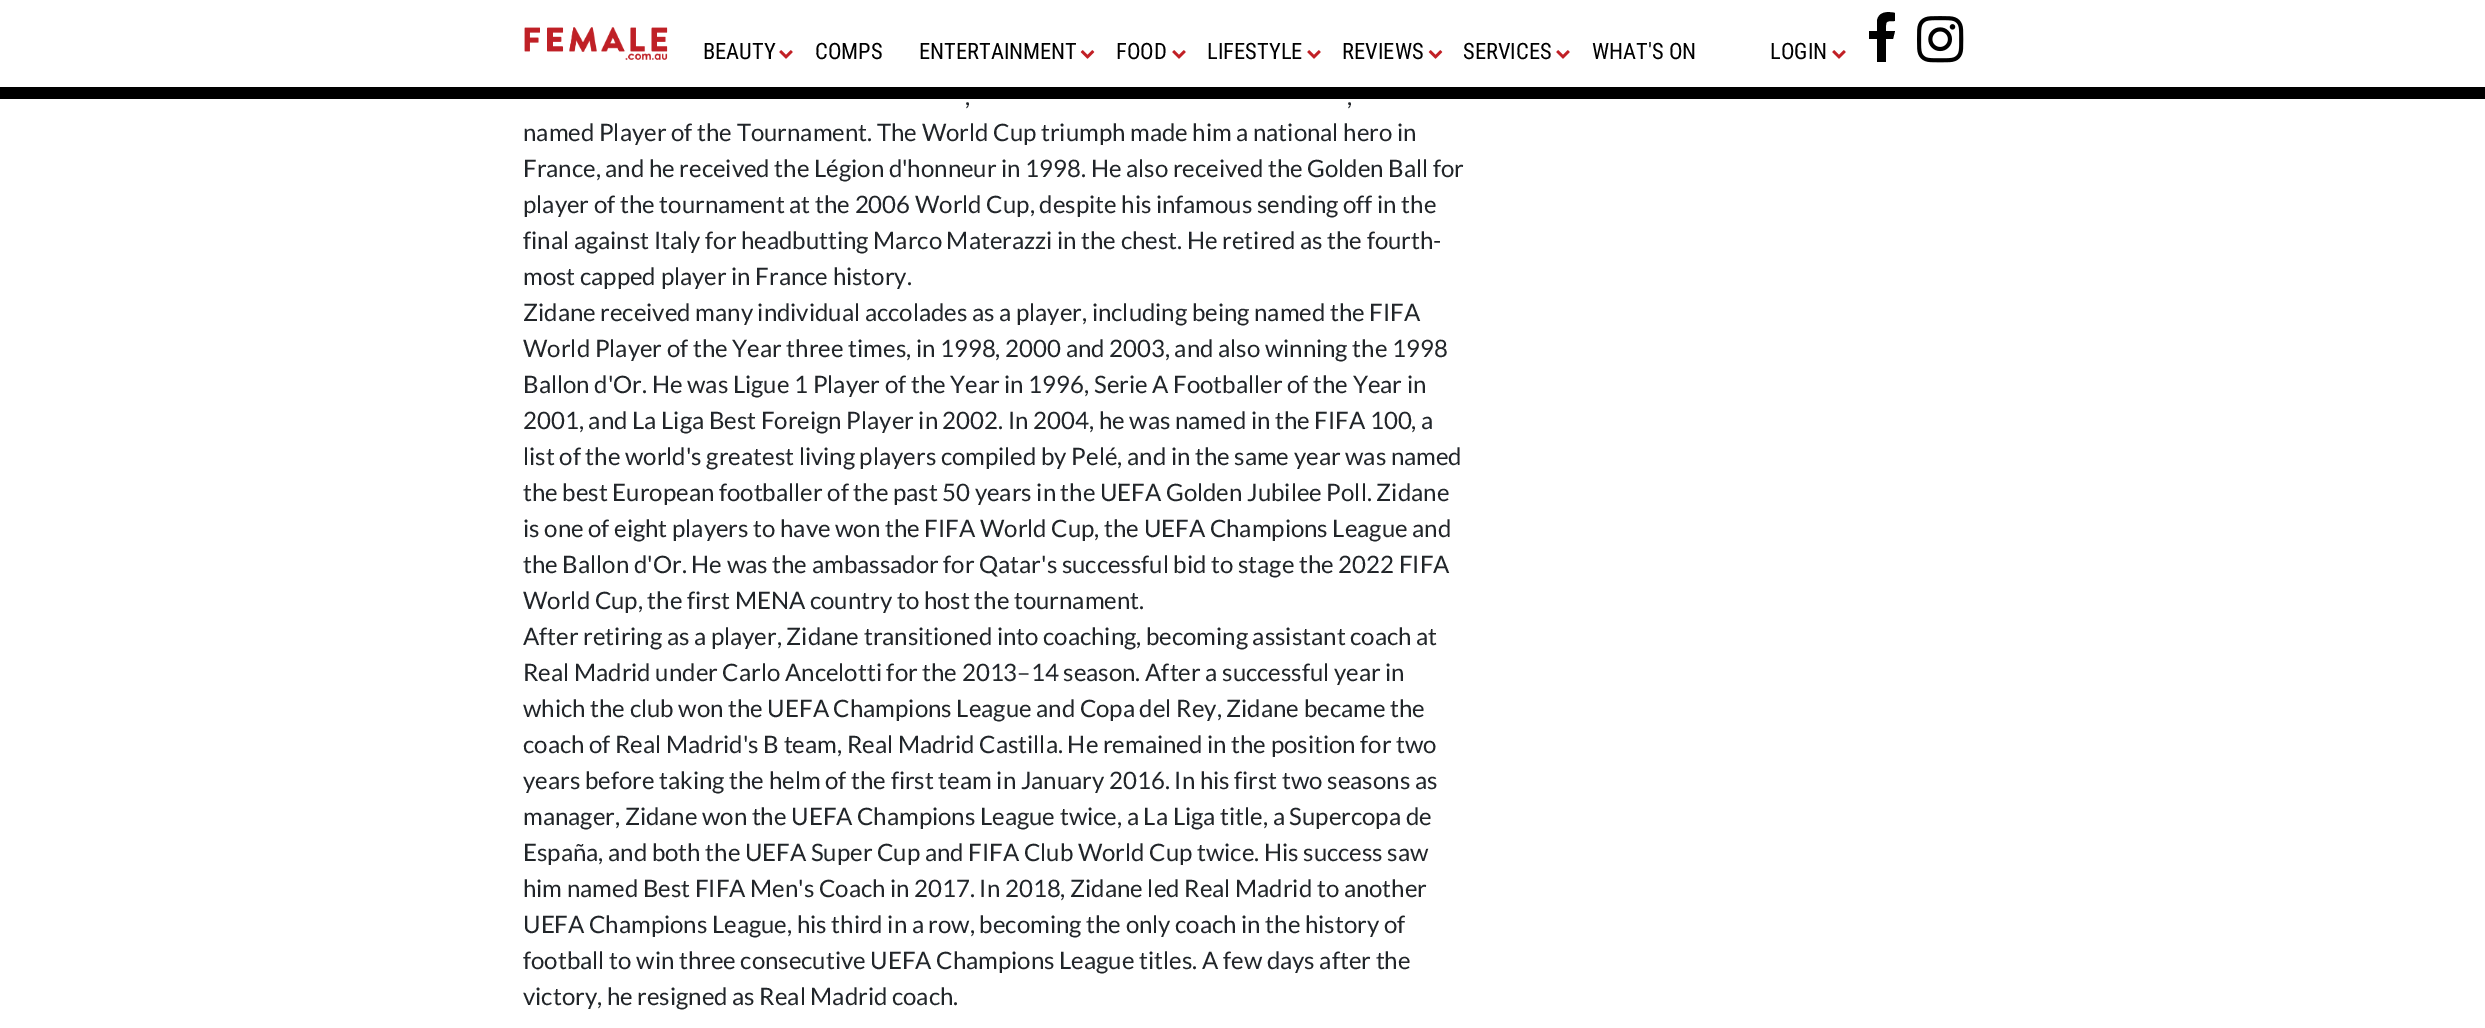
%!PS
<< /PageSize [2485 1028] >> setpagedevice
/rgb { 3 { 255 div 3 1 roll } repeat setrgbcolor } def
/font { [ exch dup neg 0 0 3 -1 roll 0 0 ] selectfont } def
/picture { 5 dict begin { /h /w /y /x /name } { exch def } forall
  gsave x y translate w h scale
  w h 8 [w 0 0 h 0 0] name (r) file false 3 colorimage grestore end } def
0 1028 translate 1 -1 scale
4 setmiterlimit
255 255 255 rgb
0 0 2485 1028 rectfill
(img/1.rgb) 524 27 144 33 picture
(img/2.rgb) 779 50 14 9 picture
(img/3.rgb) 1080 50 15 9 picture
(img/2.rgb) 1172 50 14 9 picture
(img/2.rgb) 1307 50 14 9 picture
(img/3.rgb) 1428 50 15 9 picture
(img/2.rgb) 1556 50 14 9 picture
(img/2.rgb) 1832 50 14 9 picture
0 0 0 rgb
1895 13 moveto 1895 21 lineto 1885 21 1886 21 1886 31 curveto 1895 31 lineto 1893 39 lineto 1886 39 lineto 1886 62 lineto 1877 62 lineto 1877 39 lineto 1869 39 lineto 1869 31 lineto 1877 31 lineto 1877 21 lineto 1878 12 1887 11 1895 13 curveto closepath fill
(img/4.rgb) 1917 16 47 47 picture
0 87 2485 12 rectfill
/RobotoCondensed-Regular 22.5 font
[
  [(BEAUTY) 703 59]
  [(COMPS) 815 59]
  [(ENTERTAINMENT) 919 59]
  [(FOOD) 1116 59]
  [(LIFESTYLE) 1207 59]
  [(REVIEWS) 1342 59]
  [(SERVICES) 1463 59]
  [(WHAT'S ON) 1592 59]
  [(LOGIN) 1770 59]
] { aload pop moveto show } forall
/Lato-Regular 24 font
33 37 41 rgb
[
  [(,) 965 105]
  [(,) 1347 105]
  [(named Player of the Tournament. The World Cup triumph made him a national hero in) 523 141]
  [(France, and he received the Légion d'honneur in 1998. He also received the Golden Ball for) 523 177]
  [(player of the tournament at the 2006 World Cup, despite his infamous sending off in the) 523 213]
  [(final against Italy for headbutting Marco Materazzi in the chest. He retired as the fourth-) 523 249]
  [(most capped player in France history.) 523 285]
  [(Zidane received many individual accolades as a player, including being named the FIFA) 523 321]
  [(World Player of the Year three times, in 1998, 2000 and 2003, and also winning the 1998) 523 357]
  [(Ballon d'Or. He was Ligue 1 Player of the Year in 1996, Serie A Footballer of the Year in) 523 393]
  [(2001, and La Liga Best Foreign Player in 2002. In 2004, he was named in the FIFA 100, a) 523 429]
  [(list of the world's greatest living players compiled by Pelé, and in the same year was named) 523 465]
  [(the best European footballer of the past 50 years in the UEFA Golden Jubilee Poll. Zidane) 523 501]
  [(is one of eight players to have won the FIFA World Cup, the UEFA Champions League and) 523 537]
  [(the Ballon d'Or. He was the ambassador for Qatar's successful bid to stage the 2022 FIFA) 523 573]
  [(World Cup, the first MENA country to host the tournament.) 523 609]
  [(After retiring as a player, Zidane transitioned into coaching, becoming assistant coach at) 523 645]
  [(Real Madrid under Carlo Ancelotti for the 2013–14 season. After a successful year in) 523 681]
  [(which the club won the UEFA Champions League and Copa del Rey, Zidane became the) 523 717]
  [(coach of Real Madrid's B team, Real Madrid Castilla. He remained in the position for two) 523 753]
  [(years before taking the helm of the first team in January 2016. In his first two seasons as) 523 789]
  [(manager, Zidane won the UEFA Champions League twice, a La Liga title, a Supercopa de) 523 825]
  [(España, and both the UEFA Super Cup and FIFA Club World Cup twice. His success saw) 523 861]
  [(him named Best FIFA Men's Coach in 2017. In 2018, Zidane led Real Madrid to another) 523 897]
  [(UEFA Champions League, his third in a row, becoming the only coach in the history of) 523 933]
  [(football to win three consecutive UEFA Champions League titles. A few days after the) 523 969]
  [(victory, he resigned as Real Madrid coach.) 523 1005]
] { aload pop moveto show } forall
showpage
